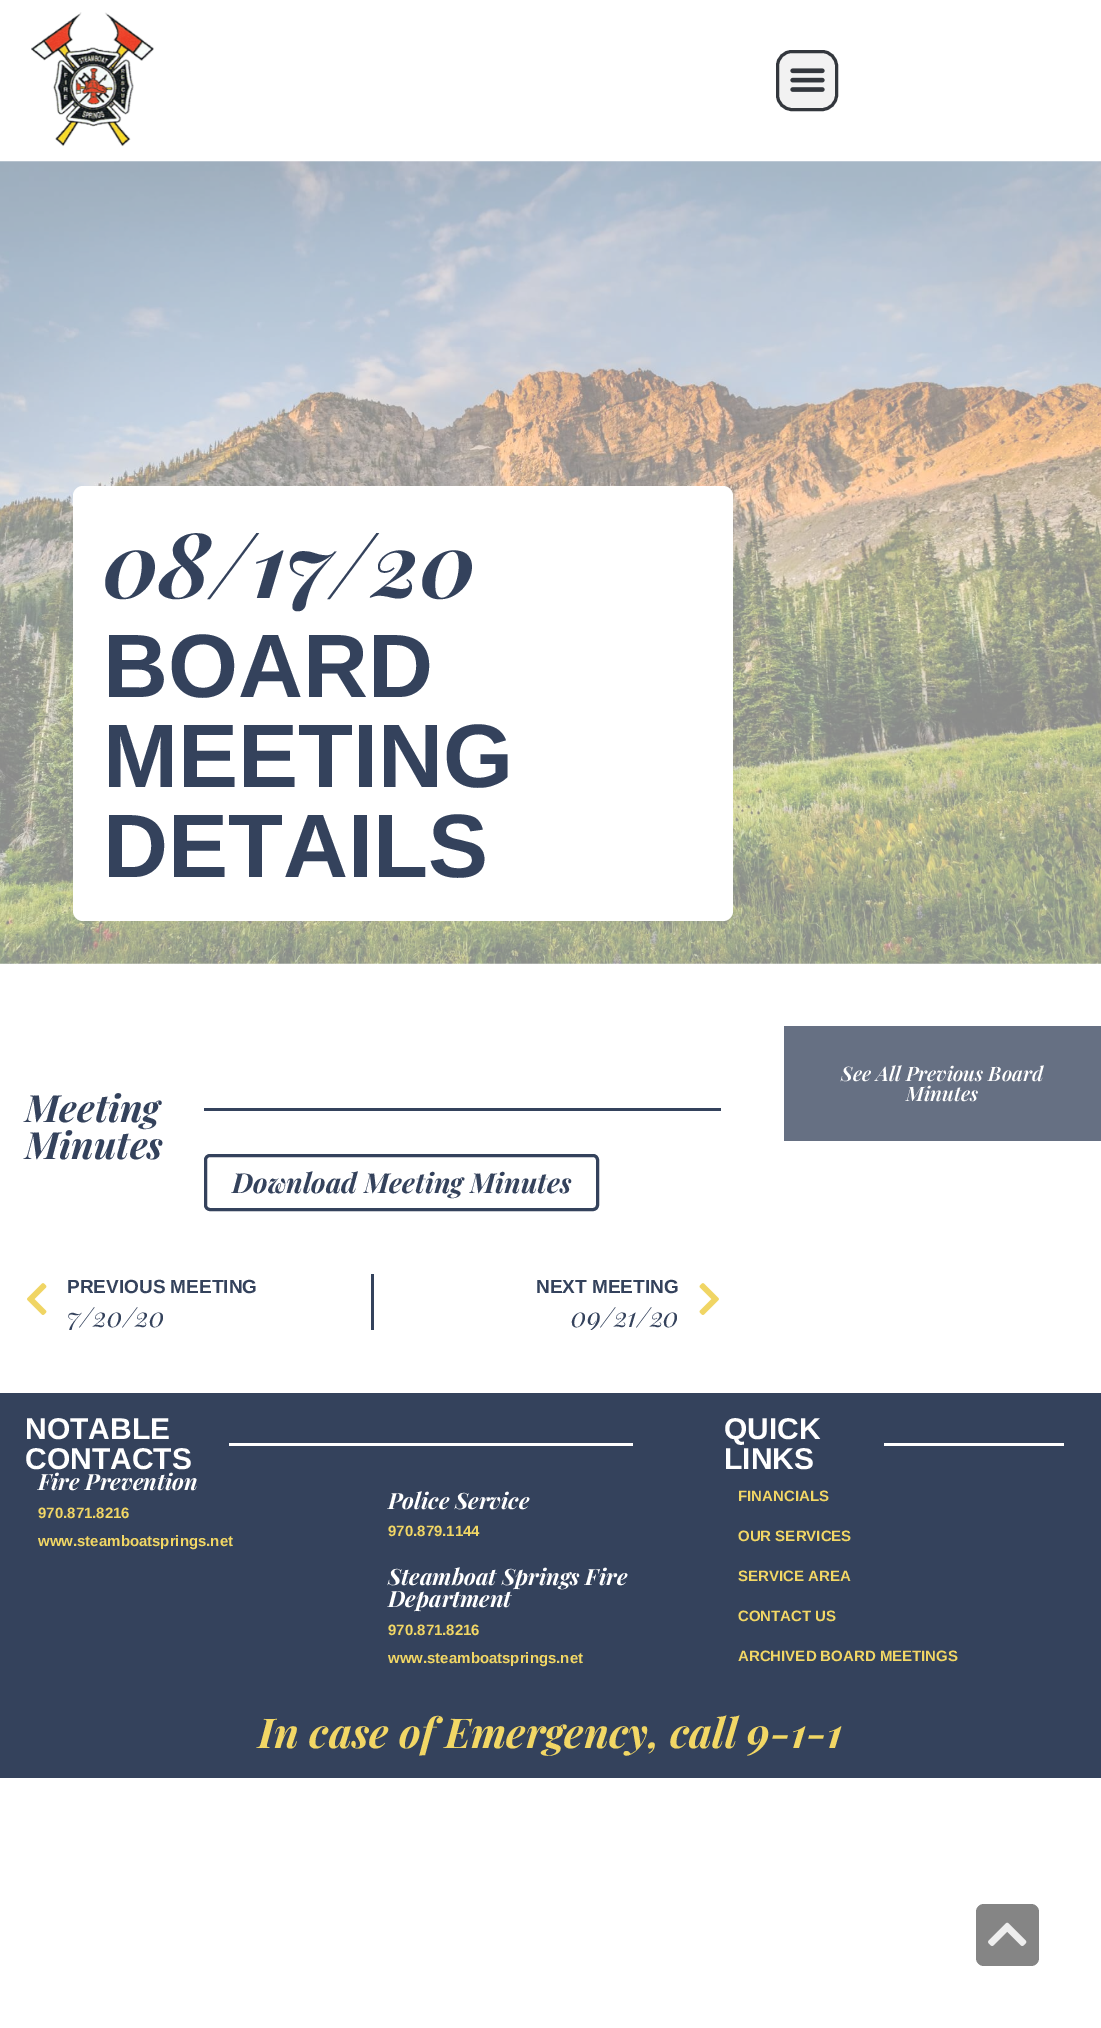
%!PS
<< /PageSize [1101 2028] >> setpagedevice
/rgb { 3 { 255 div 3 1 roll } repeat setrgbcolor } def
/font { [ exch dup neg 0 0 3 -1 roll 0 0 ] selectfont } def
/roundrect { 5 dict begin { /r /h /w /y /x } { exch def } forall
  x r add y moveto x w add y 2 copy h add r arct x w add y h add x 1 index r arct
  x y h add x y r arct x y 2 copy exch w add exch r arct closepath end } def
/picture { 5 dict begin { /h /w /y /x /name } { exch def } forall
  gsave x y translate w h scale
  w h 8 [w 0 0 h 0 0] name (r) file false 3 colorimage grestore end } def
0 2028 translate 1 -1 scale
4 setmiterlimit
255 255 255 rgb
0 0 1101 2028 rectfill
(img/1.rgb) 31 12 123 135 picture
242 242 242 rgb
777.5 51.5 59 58 14.5 roundrect gsave fill grestore
51 55 61 rgb
3 setlinewidth
stroke
(img/2.rgb) 790 68 35 24 picture
(img/3.rgb) 0 161 1101 803 picture
255 255 255 rgb
83 486 moveto 723 486 lineto 728.5 486 733 490.5 733 496 curveto 733 621 lineto 73 621 lineto 73 496 lineto 73 490.5 77.5 486 83 486 curveto closepath fill
73 621 moveto 733 621 lineto 733 911 lineto 733 916.5 728.5 921 723 921 curveto 83 921 lineto 77.5 921 73 916.5 73 911 curveto closepath fill
102 112 131 rgb
784 1026 317 115 rectfill
52 66 92 rgb
204 1108 517 3 rectfill
205.5 1155.5 392 54 4.5 roundrect stroke
(img/4.rgb) 27 1283 20 32 picture
371 1274 3 56 rectfill
(img/5.rgb) 699 1283 20 32 picture
[
  [0 1393 1101 385 52 66 92]
  [229 1443 404 3 255 255 255]
  [884 1443 180 3 255 255 255]
] { aload pop rgb rectfill } forall
133 133 133 rgb
976 1904 63 62 8 roundrect fill
(img/6.rgb) 988 1922 39 24 picture
/PlayfairDisplay-BoldItalic 90 font
52 66 92 rgb
103 598 moveto (08/17/20) show
/LiberationSans-Bold 90 font
[
  [(BOARD) 103 697]
  [(MEETING) 103 787]
  [(DETAILS) 103 877]
] { aload pop moveto show } forall
/PlayfairDisplay-SemiBoldItalic 20 font
255 255 255 rgb
841 1081 moveto (See All Previous Board) show
906 1101 moveto (Minutes) show
/PlayfairDisplay-BoldItalic 37.5 font
52 66 92 rgb
25 1122 moveto (Meeting) show
25 1159 moveto (Minutes) show
/PlayfairDisplay-BoldItalic 27.5 font
232 1193 moveto (Download Meeting Minutes) show
/LiberationSans-Bold 19 font
67 1293 moveto (PREVIOUS MEETING) show
gsave
68 1301 190 29 rectclip
/PlayfairDisplay-Italic 27.5 font
67 1327 moveto (7/20/20) show
grestore
536 1293 moveto (NEXT MEETING) show
gsave
536 1301 143 29 rectclip
/PlayfairDisplay-Italic 27.5 font
571 1327 moveto (09/21/20) show
grestore
/LiberationSans-Bold 30 font
255 255 255 rgb
[
  [(NOTABLE) 25 1439]
  [(CONTACTS) 25 1469]
  [(QUICK) 724 1439]
  [(LINKS) 724 1469]
] { aload pop moveto show } forall
/PlayfairDisplay-BoldItalic 22.5 font
38 1490 moveto (Fire Prevention) show
/LiberationSans-Bold 15 font
242 215 101 rgb
38 1518 moveto (970.871.8216) show
38 1546 moveto (www.steamboatsprings.net) show
/PlayfairDisplay-BoldItalic 22.5 font
255 255 255 rgb
388 1509 moveto (Police Service) show
/LiberationSans-Bold 15 font
242 215 101 rgb
388 1536 moveto (970.879.1144) show
/PlayfairDisplay-BoldItalic 22.5 font
255 255 255 rgb
388 1585 moveto (Steamboat Springs Fire) show
388 1607 moveto (Department) show
/LiberationSans-Bold 15 font
242 215 101 rgb
[
  [(970.871.8216) 388 1635]
  [(www.steamboatsprings.net) 388 1663]
  [(FINANCIALS) 738 1501]
  [(OUR SERVICES) 738 1541]
  [(SERVICE AREA) 738 1581]
  [(CONTACT US) 738 1621]
  [(ARCHIVED BOARD MEETINGS) 738 1661]
] { aload pop moveto show } forall
/PlayfairDisplay-BoldItalic 41.25 font
258 1748 moveto (In case of Emergency, call 9-1-1) show
showpage
